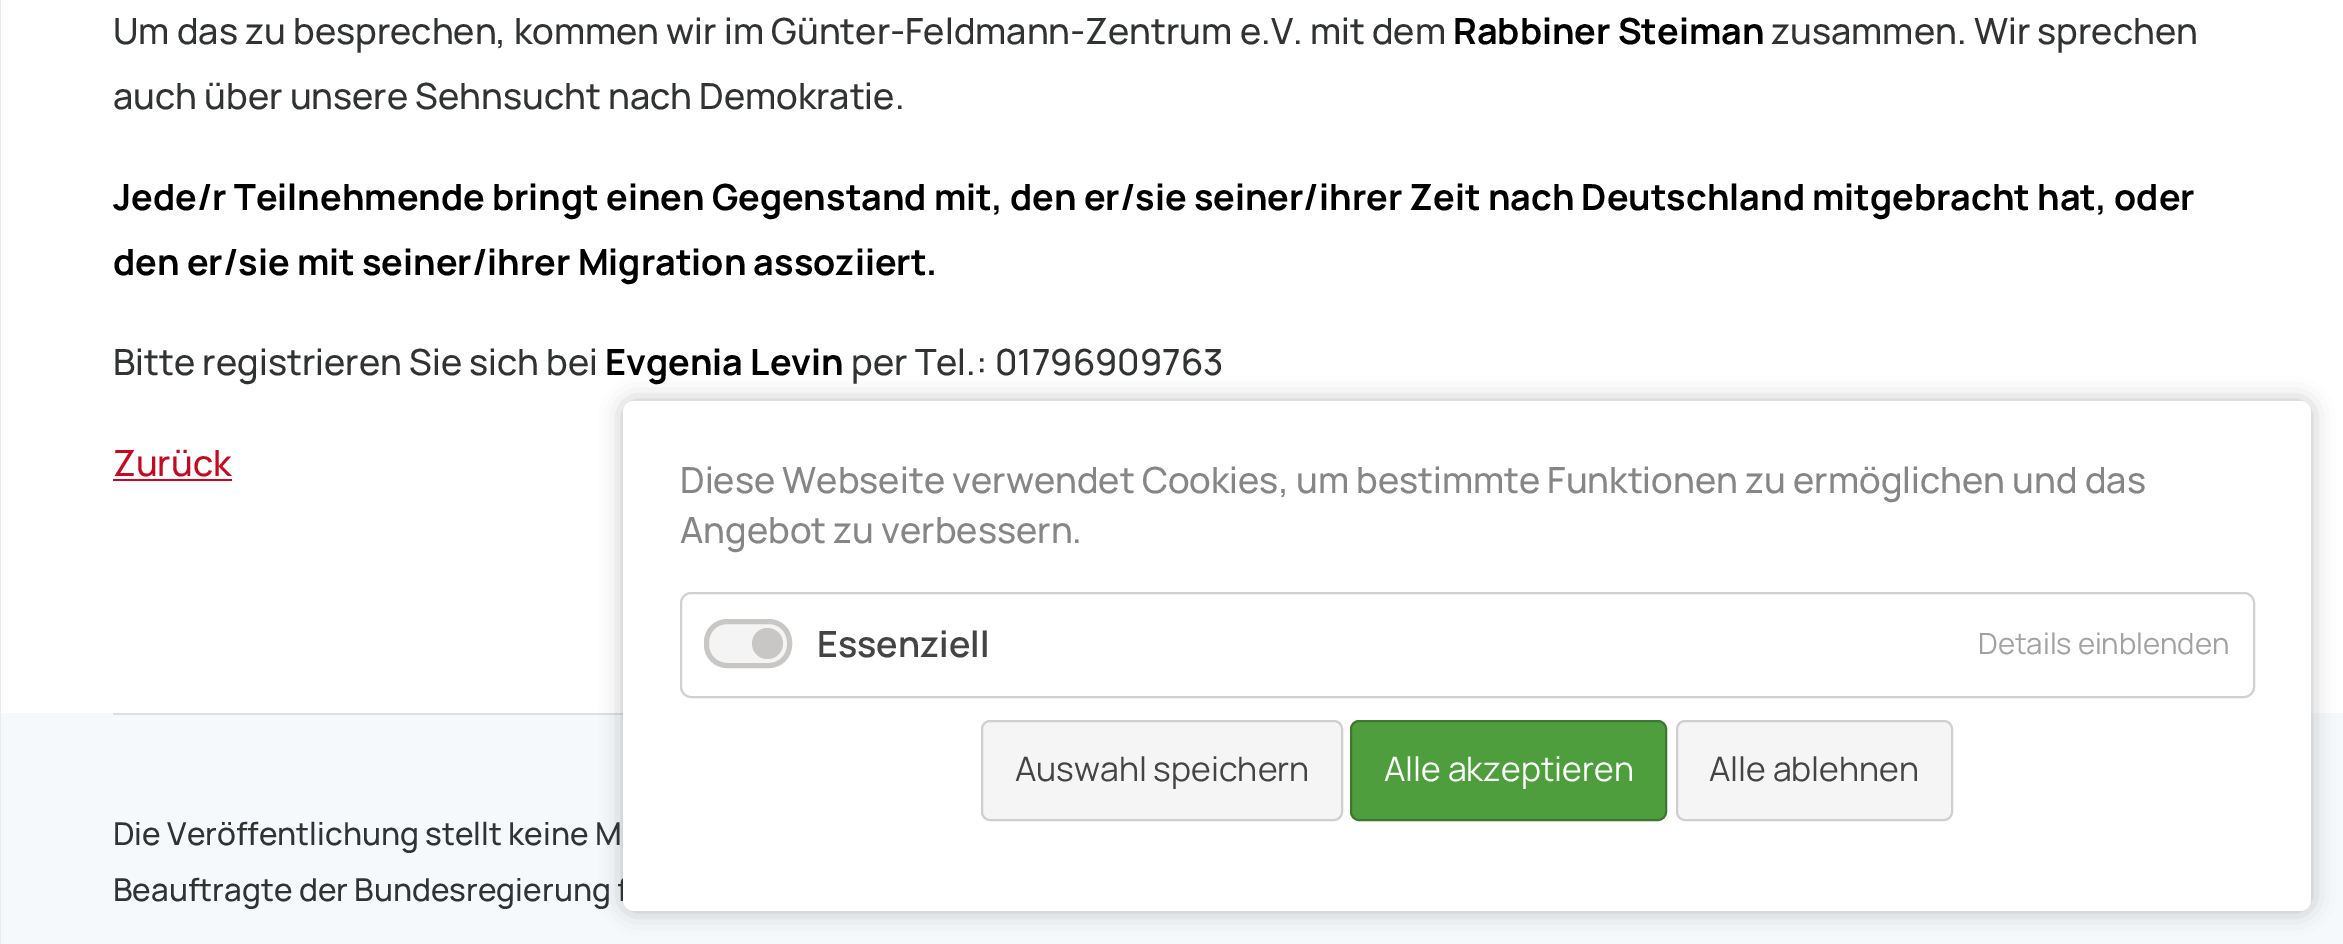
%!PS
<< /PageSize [2343 944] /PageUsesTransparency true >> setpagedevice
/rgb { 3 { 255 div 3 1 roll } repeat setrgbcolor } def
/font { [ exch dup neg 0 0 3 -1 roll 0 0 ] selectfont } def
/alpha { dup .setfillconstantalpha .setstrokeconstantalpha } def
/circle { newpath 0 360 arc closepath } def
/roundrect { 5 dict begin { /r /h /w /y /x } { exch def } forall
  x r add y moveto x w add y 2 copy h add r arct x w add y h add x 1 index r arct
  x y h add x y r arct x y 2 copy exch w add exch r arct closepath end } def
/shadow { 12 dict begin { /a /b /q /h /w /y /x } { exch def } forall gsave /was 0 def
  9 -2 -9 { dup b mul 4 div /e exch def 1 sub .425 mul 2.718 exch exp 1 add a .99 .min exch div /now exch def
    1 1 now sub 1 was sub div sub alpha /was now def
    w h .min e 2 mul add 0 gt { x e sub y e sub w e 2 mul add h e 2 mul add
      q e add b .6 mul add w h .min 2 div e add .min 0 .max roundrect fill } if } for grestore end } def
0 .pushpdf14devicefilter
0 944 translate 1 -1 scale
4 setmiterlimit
255 255 255 rgb
0 0 2343 944 rectfill
[
  [0 0 1 944 233 236 239]
  [113 479 119 2 194 11 34]
  [1 713 2342 231 245 249 252]
  [113 713 510 2 221 224 227]
] { aload pop rgb rectfill } forall
0 0 0 rgb
623 401 1688 510 11 11 0.25 shadow
/Manrope-Medium 36 font
49 50 50 rgb
113 44 moveto (Um das zu besprechen, kommen wir im Günter-Feldmann-Zentrum e.V. mit dem) show
/Manrope-Bold 36 font
0 0 0 rgb
1453 44 moveto (Rabbiner Steiman) show
/Manrope-Medium 36 font
49 50 50 rgb
1771 44 moveto (zusammen. Wir sprechen) show
113 109 moveto (auch über unsere Sehnsucht nach Demokratie.) show
/Manrope-Bold 36 font
0 0 0 rgb
113 210 moveto (Jede/r Teilnehmende bringt einen Gegenstand mit, den er/sie seiner/ihrer Zeit nach Deutschland mitgebracht hat, oder) show
113 275 moveto (den er/sie mit seiner/ihrer Migration assoziiert.) show
/Manrope-Medium 36 font
49 50 50 rgb
113 375 moveto (Bitte registrieren Sie sich bei) show
/Manrope-Bold 36 font
0 0 0 rgb
605 375 moveto (Evgenia Levin) show
/Manrope-Medium 36 font
49 50 50 rgb
851 375 moveto (per Tel.: 01796909763) show
194 11 34 rgb
113 476 moveto (Zurück) show
/Manrope-Medium 31.5 font
49 50 50 rgb
113 845 moveto (Die Veröffentlichung stellt keine M) show
113 901 moveto (Beauftragte der Bundesregierung f) show
255 255 255 rgb
623 401 1688 510 11 roundrect fill
/Manrope-Medium 36 font
134 134 134 rgb
680 493 moveto (Diese Webseite verwendet Cookies, um bestimmte Funktionen zu ermöglichen und das) show
680 543 moveto (Angebot zu verbessern.) show
208 208 208 rgb
2 setlinewidth
681 593 1573 104 10 roundrect stroke
244 244 244 rgb
706.5 621.5 83 44 20.5 roundrect gsave fill grestore
200 199 197 rgb
5 setlinewidth
stroke
767.5 643.5 15.5 circle fill
/Manrope-SemiBold 36 font
68 68 68 rgb
817 657 moveto (Essenziell) show
/Manrope-Regular 29.25 font
162 162 162 rgb
1978 654 moveto (Details einblenden) show
245 245 245 rgb
982 721 360 99 8 roundrect gsave fill grestore
207 207 207 rgb
2 setlinewidth
stroke
/Manrope-Regular 33.75 font
68 68 68 rgb
1015 781 moveto (Auswahl speichern) show
78 158 62 rgb
1351 721 315 99 8 roundrect gsave fill grestore
62 120 48 rgb
stroke
255 255 255 rgb
1384 781 moveto (Alle akzeptieren) show
245 245 245 rgb
1677 721 275 99 8 roundrect gsave fill grestore
207 207 207 rgb
stroke
68 68 68 rgb
1709 781 moveto (Alle ablehnen) show
.poppdf14devicefilter showpage
